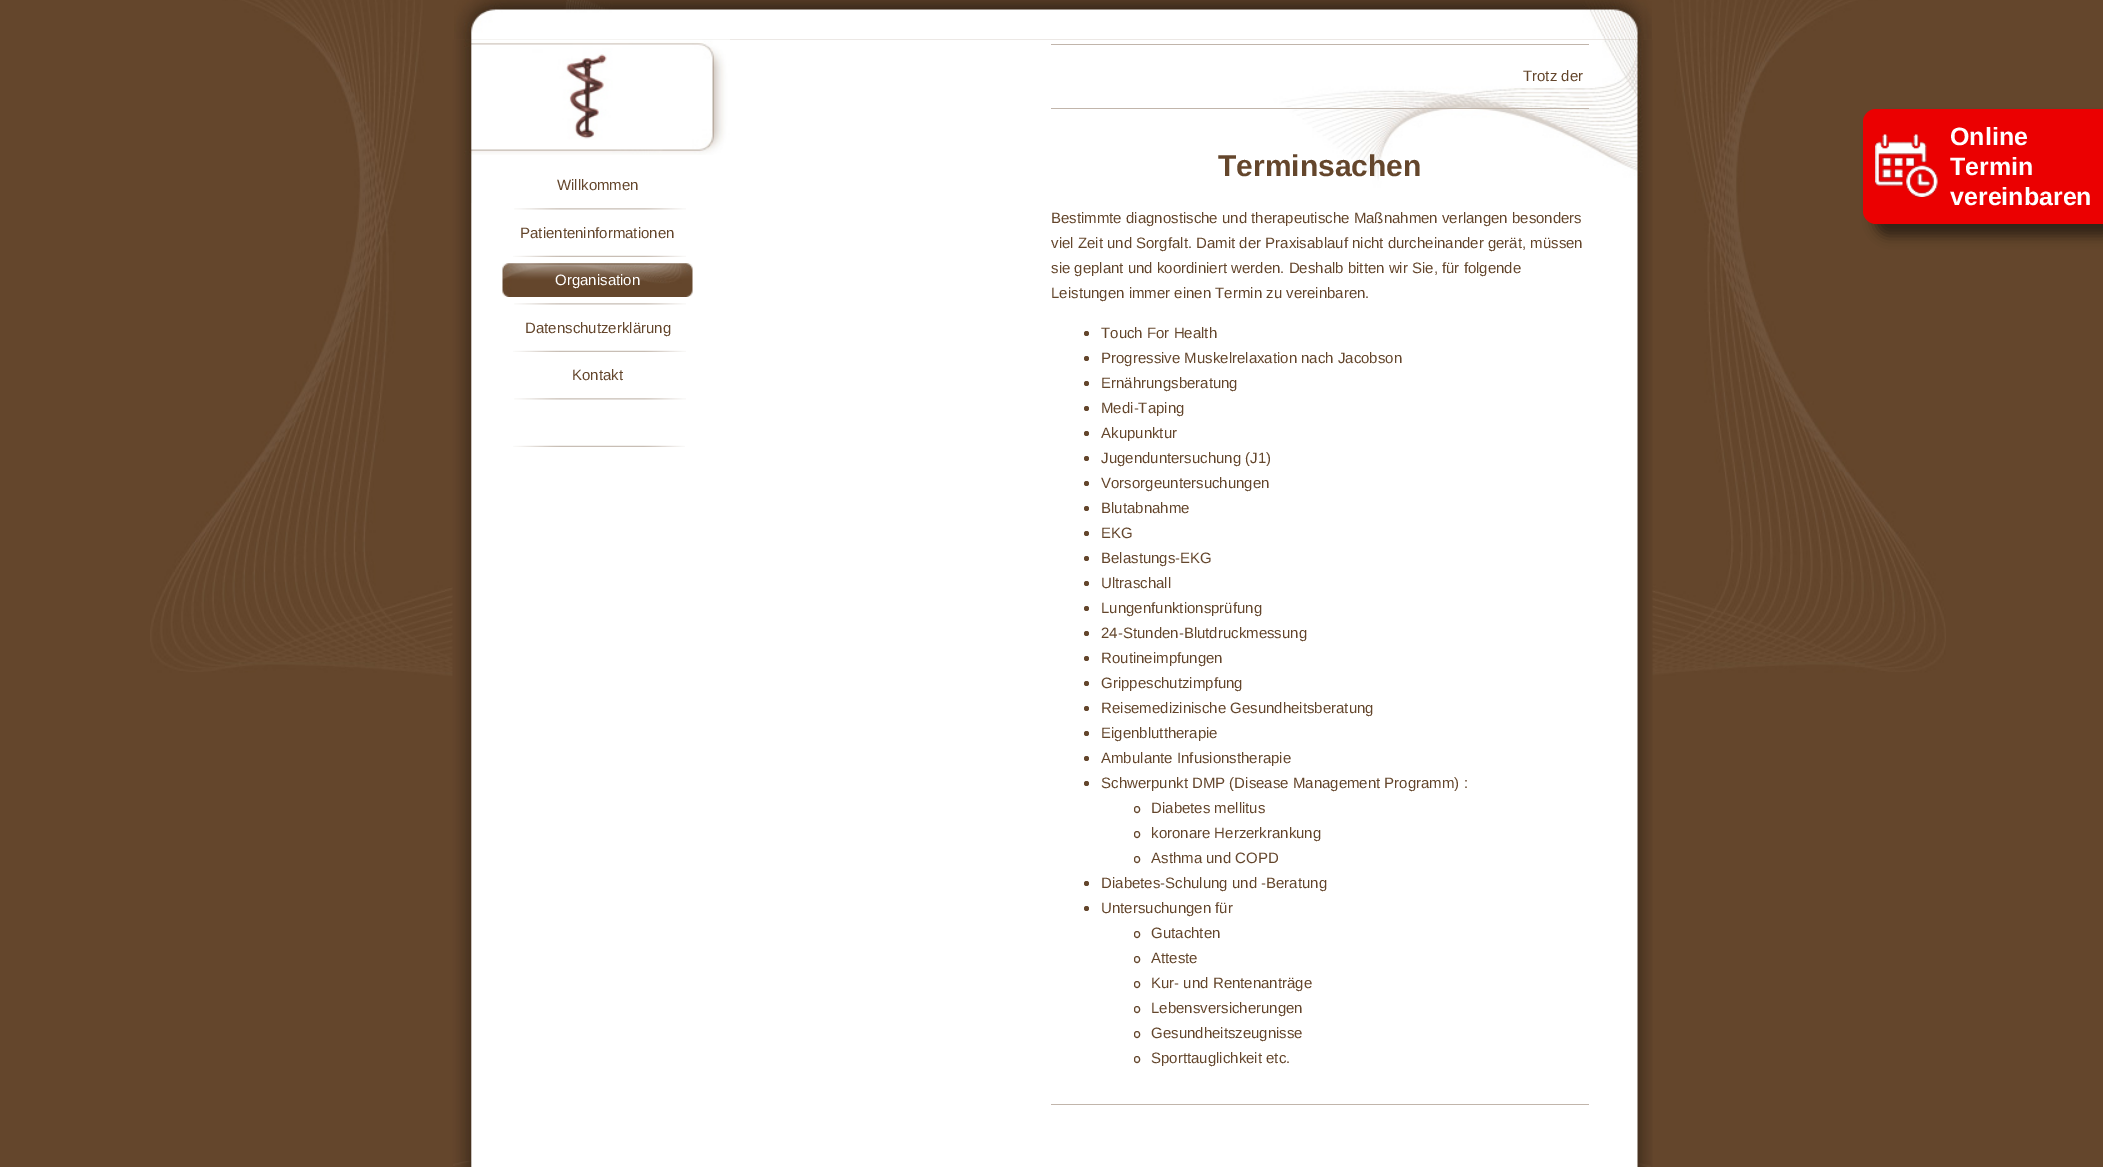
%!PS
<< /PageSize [2103 1167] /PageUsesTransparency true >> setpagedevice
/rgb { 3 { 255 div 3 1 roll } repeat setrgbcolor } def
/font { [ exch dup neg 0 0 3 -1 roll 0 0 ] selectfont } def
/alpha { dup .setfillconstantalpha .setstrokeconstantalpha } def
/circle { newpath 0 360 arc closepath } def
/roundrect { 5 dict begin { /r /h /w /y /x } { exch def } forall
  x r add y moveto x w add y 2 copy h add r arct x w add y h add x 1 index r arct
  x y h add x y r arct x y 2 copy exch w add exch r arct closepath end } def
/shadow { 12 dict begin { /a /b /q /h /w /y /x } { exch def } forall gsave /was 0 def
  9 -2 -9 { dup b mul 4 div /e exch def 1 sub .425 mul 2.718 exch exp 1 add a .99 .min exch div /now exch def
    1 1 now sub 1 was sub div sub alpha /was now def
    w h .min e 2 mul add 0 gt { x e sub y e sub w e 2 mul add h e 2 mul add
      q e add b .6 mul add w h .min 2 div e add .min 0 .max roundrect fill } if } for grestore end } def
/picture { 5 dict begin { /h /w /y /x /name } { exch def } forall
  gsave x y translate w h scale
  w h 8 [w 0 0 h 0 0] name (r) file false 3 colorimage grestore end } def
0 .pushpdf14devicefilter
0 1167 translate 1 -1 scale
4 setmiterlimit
100 70 44 rgb
0 0 2103 1167 rectfill
(img/1.rgb) 150 0 1796 676 picture
(img/2.rgb) 454 0 1198 40 picture
(img/3.rgb) 452 39 1201 1128 picture
(img/4.rgb) 470 39 1173 164 picture
(img/5.rgb) 464 39 266 116 picture
(img/6.rgb) 514 208 172 2 picture
(img/7.rgb) 513 255 173 2 picture
(img/8.rgb) 502 263 191 34 picture
(img/6.rgb) 514 303 172 2 picture
(img/7.rgb) 513 350 173 2 picture
(img/6.rgb) 514 398 172 2 picture
(img/9.rgb) 513 445 172 2 picture
[
  [1051 44 538 1 193 181 171]
  [1051 108 538 1 193 181 171]
  [1051 1104 538 1 193 181 171]
] { aload pop rgb rectfill } forall
100 70 44 rgb
1086.5 333.5 2.5 circle fill
1086.5 358.5 2.5 circle fill
1086.5 383.5 2.5 circle fill
1086.5 408.5 2.5 circle fill
1086.5 433.5 2.5 circle fill
1086.5 458.5 2.5 circle fill
1086.5 483.5 2.5 circle fill
1086.5 508.5 2.5 circle fill
1086.5 533.5 2.5 circle fill
1086.5 558.5 2.5 circle fill
1086.5 583.5 2.5 circle fill
1086.5 608.5 2.5 circle fill
1086.5 633.5 2.5 circle fill
1086.5 658.5 2.5 circle fill
1086.5 683.5 2.5 circle fill
1086.5 708.5 2.5 circle fill
1086.5 733.5 2.5 circle fill
1086.5 758.5 2.5 circle fill
1086.5 783.5 2.5 circle fill
1134.5 806.5 5 6 2.5 roundrect stroke
1134.5 831.5 5 6 2.5 roundrect stroke
1134.5 856.5 5 6 2.5 roundrect stroke
1086.5 883.5 2.5 circle fill
1086.5 908.5 2.5 circle fill
1134.5 931.5 5 6 2.5 roundrect stroke
1134.5 956.5 5 6 2.5 roundrect stroke
1134.5 981.5 5 6 2.5 roundrect stroke
1134.5 1006.5 5 6 2.5 roundrect stroke
1134.5 1031.5 5 6 2.5 roundrect stroke
1134.5 1056.5 5 6 2.5 roundrect stroke
(img/10.rgb) 453 1161 1198 6 picture
0 0 0 rgb
1875 121 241 115 13 6 0.5 shadow
235 0 1 rgb
1876 109 moveto 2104 109 lineto 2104 224 lineto 1876 224 lineto 1869 224 1863 218 1863 211 curveto 1863 122 lineto 1863 115 1869 109 1876 109 curveto closepath fill
(img/11.rgb) 1875 134 63 63 picture
/LiberationSans-Regular 15 font
100 70 44 rgb
557 190 moveto (Willkommen) show
520 238 moveto (Patienteninformationen) show
255 255 255 rgb
555 285 moveto (Organisation) show
100 70 44 rgb
[
  [(Datenschutzerklärung) 525 333]
  [(Kontakt) 572 380]
  [(Trotz der) 1523 81]
] { aload pop moveto show } forall
/LiberationSans-Bold 30 font
1218 176 moveto (Terminsachen) show
/LiberationSans-Regular 15 font
[
  [(Bestimmte diagnostische und therapeutische Maßnahmen verlangen besonders) 1051 223]
  [(viel Zeit und Sorgfalt. Damit der Praxisablauf nicht durcheinander gerät, müssen) 1051 248]
  [(sie geplant und koordiniert werden. Deshalb bitten wir Sie, für folgende) 1051 273]
  [(Leistungen immer einen Termin zu vereinbaren.) 1051 298]
  [(Touch For Health) 1101 338]
  [(Progressive Muskelrelaxation nach Jacobson) 1101 363]
  [(Ernährungsberatung) 1101 388]
  [(Medi-Taping) 1101 413]
  [(Akupunktur) 1101 438]
  [(Jugenduntersuchung \(J1\)) 1101 463]
  [(Vorsorgeuntersuchungen) 1101 488]
  [(Blutabnahme) 1101 513]
  [(EKG) 1101 538]
  [(Belastungs-EKG) 1101 563]
  [(Ultraschall) 1101 588]
  [(Lungenfunktionsprüfung) 1101 613]
  [(24-Stunden-Blutdruckmessung) 1101 638]
  [(Routineimpfungen) 1101 663]
  [(Grippeschutzimpfung) 1101 688]
  [(Reisemedizinische Gesundheitsberatung) 1101 713]
  [(Eigenbluttherapie) 1101 738]
  [(Ambulante Infusionstherapie) 1101 763]
  [(Schwerpunkt DMP \(Disease Management Programm\) :) 1101 788]
  [(Diabetes mellitus) 1151 813]
  [(koronare Herzerkrankung) 1151 838]
  [(Asthma und COPD) 1151 863]
  [(Diabetes-Schulung und -Beratung) 1101 888]
  [(Untersuchungen für) 1101 913]
  [(Gutachten) 1151 938]
  [(Atteste) 1151 963]
  [(Kur- und Rentenanträge) 1151 988]
  [(Lebensversicherungen) 1151 1013]
  [(Gesundheitszeugnisse) 1151 1038]
  [(Sporttauglichkeit etc.) 1151 1063]
] { aload pop moveto show } forall
/LiberationSans-Bold 25 font
255 255 255 rgb
[
  [(Online) 1950 145]
  [(Termin) 1950 175]
  [(vereinbaren) 1950 205]
] { aload pop moveto show } forall
.poppdf14devicefilter showpage
